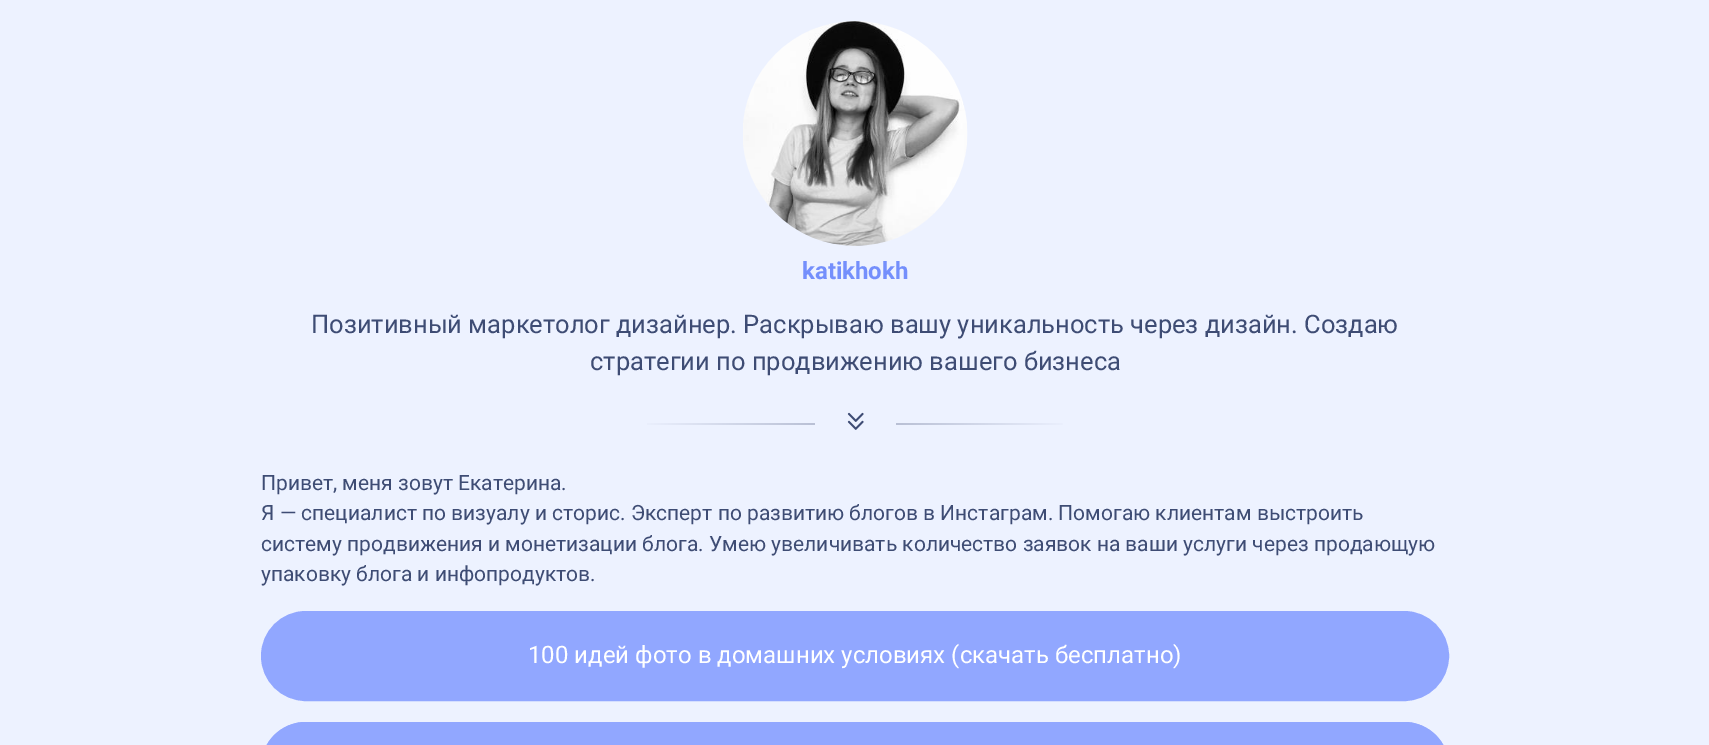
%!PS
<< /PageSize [1709 745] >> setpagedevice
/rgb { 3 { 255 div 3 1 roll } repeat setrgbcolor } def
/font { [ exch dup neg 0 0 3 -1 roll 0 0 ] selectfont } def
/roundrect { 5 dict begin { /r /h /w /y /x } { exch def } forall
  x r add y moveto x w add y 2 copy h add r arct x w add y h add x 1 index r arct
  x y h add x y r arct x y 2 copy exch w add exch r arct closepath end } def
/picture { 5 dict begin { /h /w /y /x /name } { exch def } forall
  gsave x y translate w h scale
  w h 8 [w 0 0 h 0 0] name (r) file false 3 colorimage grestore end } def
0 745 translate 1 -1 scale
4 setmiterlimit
237 242 255 rgb
0 0 1709 745 rectfill
(img/1.rgb) 743 21 225 225 picture
gsave 647 423 moveto 815 423 lineto 815 425 lineto 647 425 lineto closepath clip newpath
<< /ShadingType 2 /ColorSpace /DeviceRGB /Coords [815 424 638 424] /Extend [true true] /Function << /FunctionType 2 /Domain [0 1] /C0 [0.725 0.753 0.835] /C1 [0.929 0.949 1] /N 1 >> >> shfill grestore
(img/2.rgb) 847 412 17 18 picture
gsave 896 423 moveto 1063 423 lineto 1063 425 lineto 896 425 lineto closepath clip newpath
<< /ShadingType 2 /ColorSpace /DeviceRGB /Coords [895 424 1072 424] /Extend [true true] /Function << /FunctionType 2 /Domain [0 1] /C0 [0.725 0.753 0.835] /C1 [0.929 0.949 1] /N 1 >> >> shfill grestore
145 167 255 rgb
262.5 612.5 1185 87 43.5 roundrect gsave fill grestore
3 setlinewidth
stroke
306 722 moveto 1404 722 lineto 1429 722 1449 742 1449 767 curveto 1449 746 lineto 261 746 lineto 261 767 lineto 261 742 281 722 306 722 curveto closepath fill
262.5 723.5 1185 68 43.5 roundrect stroke
/Roboto-Bold 24 font
116 143 252 rgb
802 279 moveto (katikhokh) show
/Roboto-Regular 25.5 font
62 76 116 rgb
311 333 moveto (Позитивный маркетолог дизайнер. Раскрываю вашу уникальность через дизайн. Создаю) show
590 370 moveto (стратегии по продвижению вашего бизнеса) show
/Roboto-Regular 21 font
[
  [(Привет, меня зовут Екатерина.) 261 490]
  [(Я — специалист по визуалу и сторис. Эксперт по развитию блогов в Инстаграм. Помогаю клиентам выстроить) 261 520]
  [(систему продвижения и монетизации блога. Умею увеличивать количество заявок на ваши услуги через продающую) 261 551]
  [(упаковку блога и инфопродуктов.) 261 581]
] { aload pop moveto show } forall
/Roboto-Regular 24 font
255 255 255 rgb
528 663 moveto (100 идей фото в домашних условиях \(скачать бесплатно\)) show
showpage
